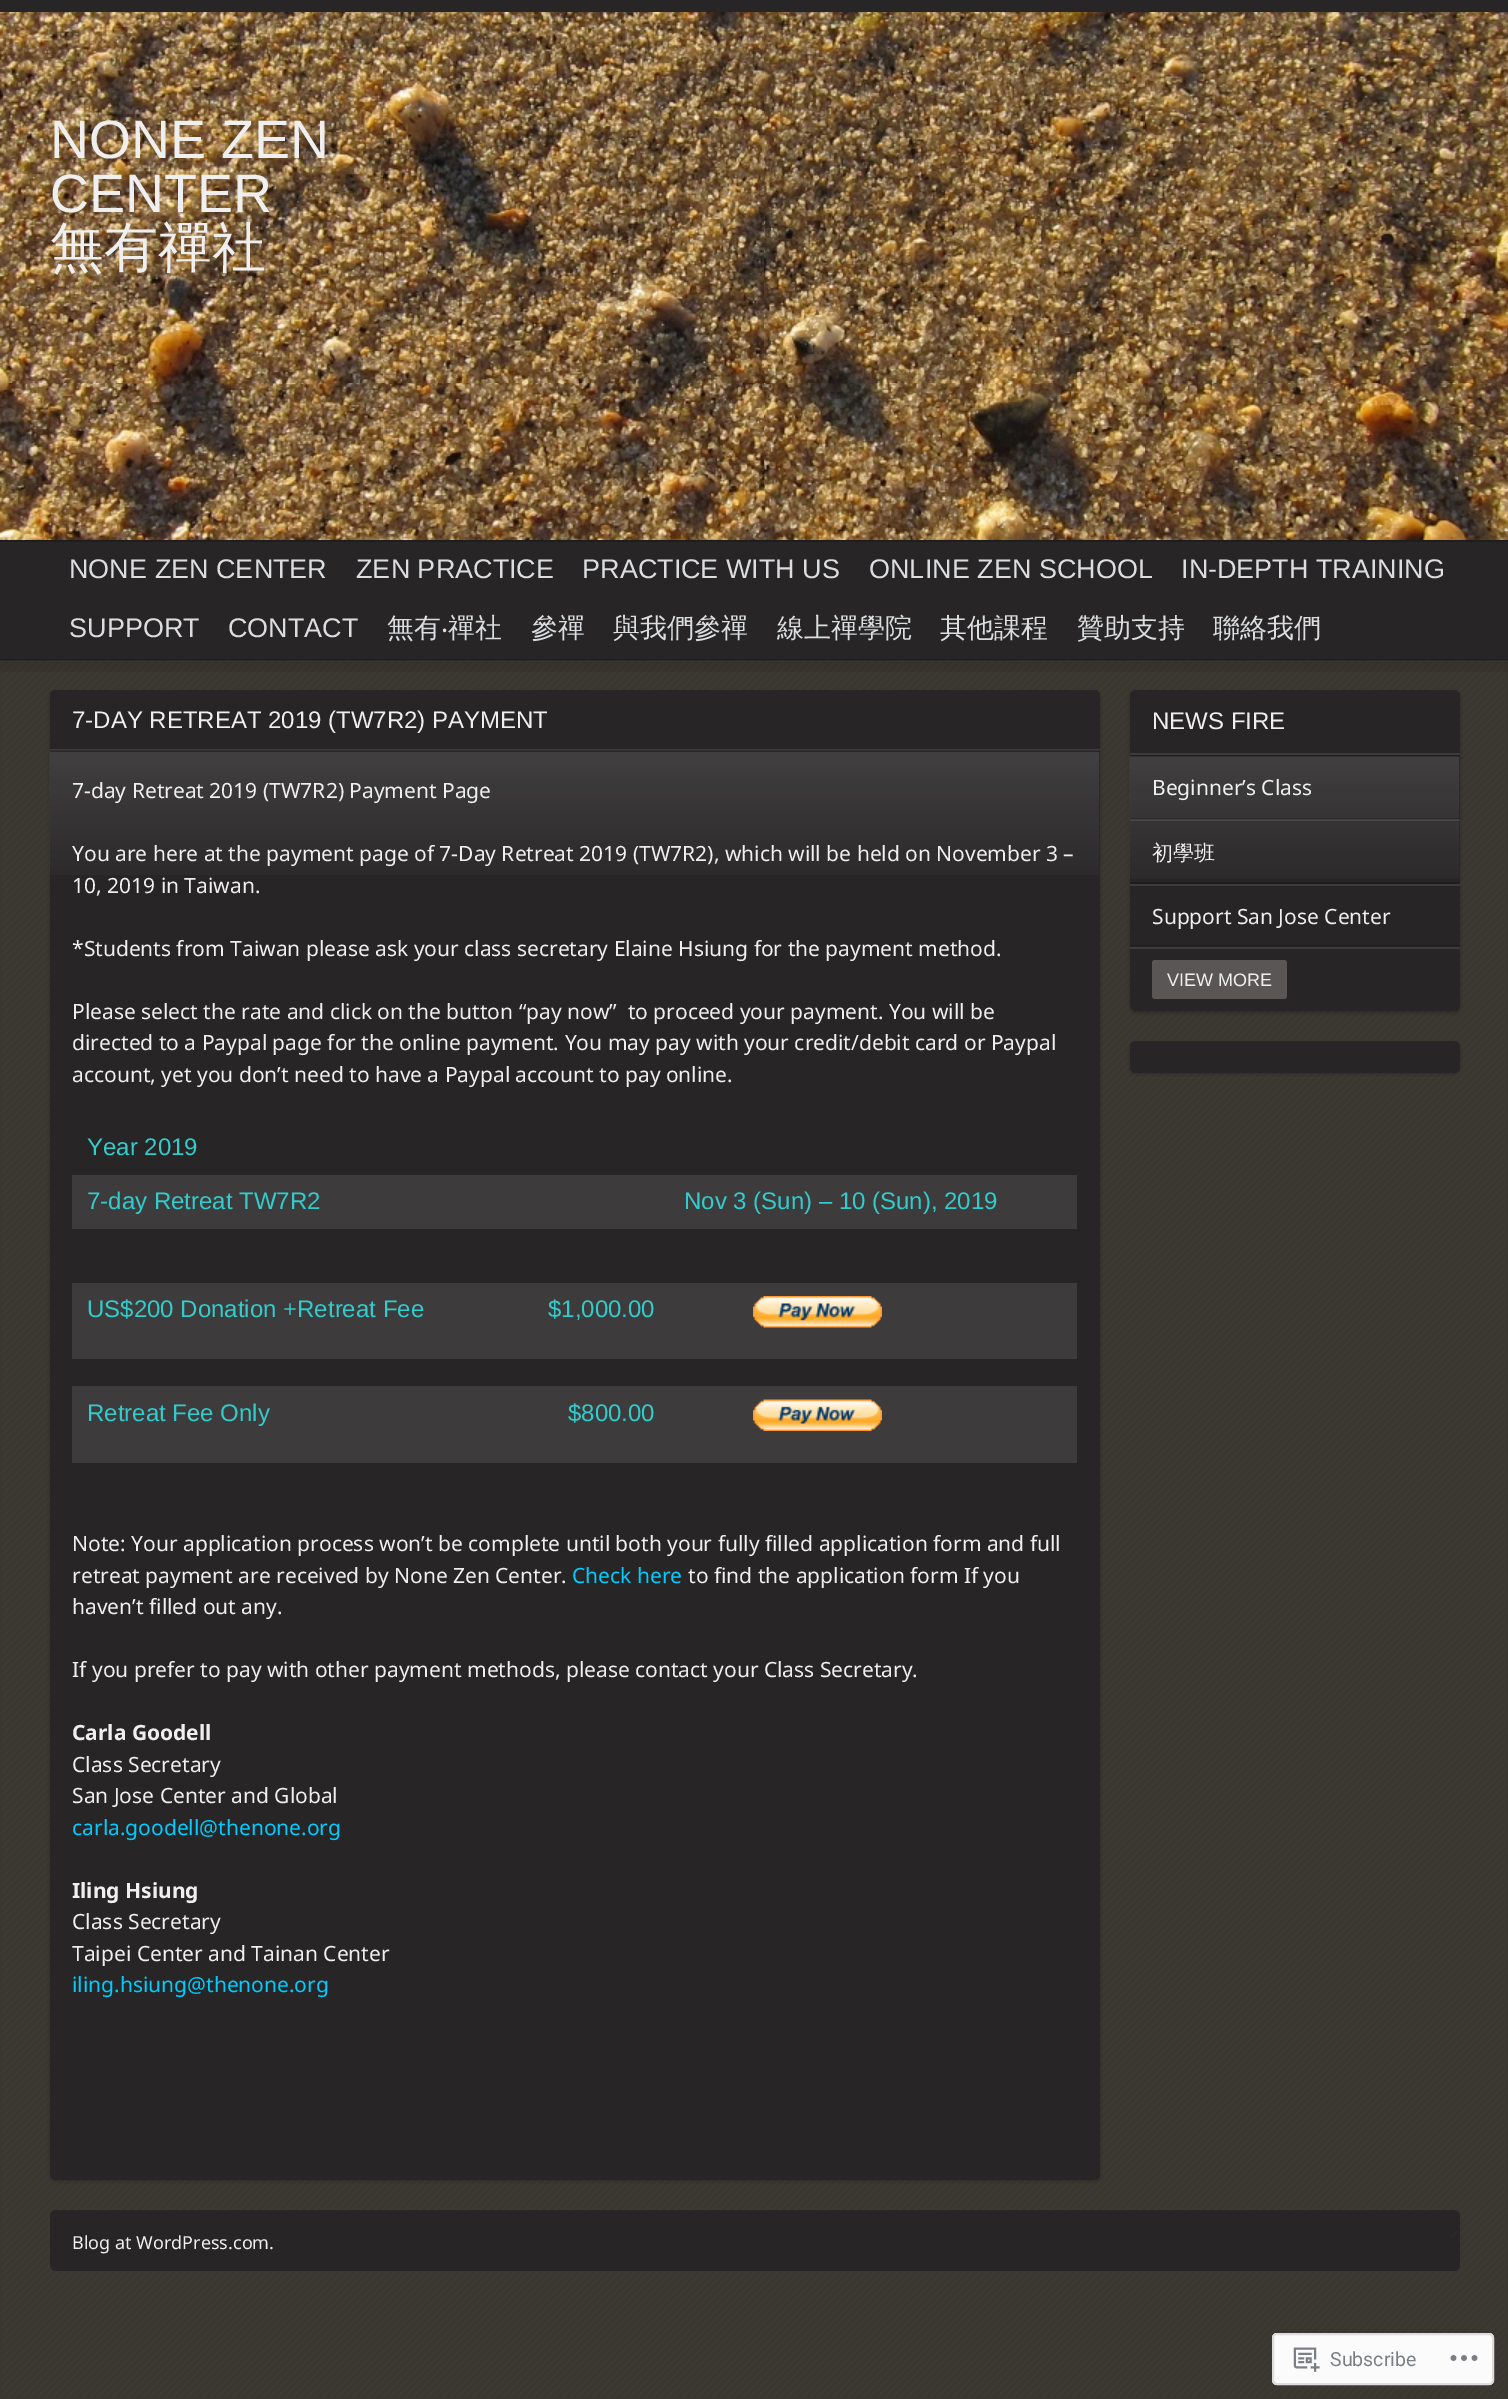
%!PS
<< /PageSize [1508 2399] /PageUsesTransparency true >> setpagedevice
/rgb { 3 { 255 div 3 1 roll } repeat setrgbcolor } def
/font { [ exch dup neg 0 0 3 -1 roll 0 0 ] selectfont } def
/alpha { dup .setfillconstantalpha .setstrokeconstantalpha } def
/roundrect { 5 dict begin { /r /h /w /y /x } { exch def } forall
  x r add y moveto x w add y 2 copy h add r arct x w add y h add x 1 index r arct
  x y h add x y r arct x y 2 copy exch w add exch r arct closepath end } def
/shadow { 12 dict begin { /a /b /q /h /w /y /x } { exch def } forall gsave /was 0 def
  9 -2 -9 { dup b mul 4 div /e exch def 1 sub .425 mul 2.718 exch exp 1 add a .99 .min exch div /now exch def
    1 1 now sub 1 was sub div sub alpha /was now def
    w h .min e 2 mul add 0 gt { x e sub y e sub w e 2 mul add h e 2 mul add
      q e add b .6 mul add w h .min 2 div e add .min 0 .max roundrect fill } if } for grestore end } def
/picture { 5 dict begin { /h /w /y /x /name } { exch def } forall
  gsave x y translate w h scale
  w h 8 [w 0 0 h 0 0] name (r) file false 3 colorimage grestore end } def
0 .pushpdf14devicefilter
0 2399 translate 1 -1 scale
4 setmiterlimit
58 55 48 rgb
0 0 1508 2399 rectfill
(img/1.rgb) 2 662 1504 1735 picture
(img/2.rgb) 0 661 1508 11 picture
(img/3.rgb) 0 12 1508 528 picture
[
  [0 0 1508 12 39 37 37]
  [0 542 1508 118 39 37 37]
  [0 540 1508 2 31 30 30]
] { aload pop rgb rectfill } forall
0.2 alpha
[
  [0 659 1508 2 0 0 0]
] { aload pop rgb rectfill } forall
1 alpha
50 692 1050 1489 6 2 0.25 shadow
39 37 37 rgb
50 690 1050 1490 6 roundrect fill
56 690 moveto 1094 690 lineto 1097.5 690 1100 692.5 1100 696 curveto 1100 750 lineto 50 750 lineto 50 696 lineto 50 692.5 52.5 690 56 690 curveto closepath fill
61 59 59 rgb
50 749 1050 2 rectfill
(img/4.rgb) 49 751 1051 124 picture
0.2 alpha
[
  [50 750 1050 2 0 0 0]
] { aload pop rgb rectfill } forall
1 alpha
[
  [72 1175 1005 54 61 59 59]
  [72 1283 1005 76 61 59 59]
] { aload pop rgb rectfill } forall
(img/5.rgb) 753 1296 129 32 picture
72 1386 1005 77 rectfill
(img/6.rgb) 753 1399 129 32 picture
0 0 0 rgb
1130 692 330 321 6 2 0.25 shadow
39 37 37 rgb
1130 690 330 321 6 roundrect fill
61 59 59 rgb
1130 753 330 2 rectfill
(img/7.rgb) 1129 756 331 123 picture
0.2 alpha
[
  [1130 755 330 2 0 0 0]
  [1130 818 330 2 0 0 0]
] { aload pop rgb rectfill } forall
0.1 alpha
[
  [1130 819 330 2 255 255 255]
] { aload pop rgb rectfill } forall
0.2 alpha
[
  [1130 882 330 2 0 0 0]
] { aload pop rgb rectfill } forall
0.1 alpha
[
  [1130 884 330 2 255 255 255]
] { aload pop rgb rectfill } forall
1 alpha
31 30 30 rgb
1130 945 moveto 1130 946 lineto 1460 946 lineto 1460 1010 lineto 1460 945 lineto closepath fill
61 59 59 rgb
1130 947 330 2 rectfill
91 86 86 rgb
1152 960 135 39 3 roundrect fill
0 0 0 rgb
1130 1043 330 31 6 2 0.25 shadow
39 37 37 rgb
1130 1041 330 32 6 roundrect fill
50 2210 1410 61 6 roundrect fill
(img/8.rgb) 1451 2231 7 7 picture
0.98 alpha
255 255 255 rgb
1272 2333 222 52 5 roundrect fill
220 220 222 rgb
2 setlinewidth
1273 2334 220 50 4 roundrect stroke
1 alpha
(img/9.rgb) 1293 2347 27 25 picture
(img/10.rgb) 1450 2355 28 6 picture
/Arimo-Regular 54 font
239 239 239 rgb
50 158 moveto (NONE ZEN) show
50 212 moveto (CENTER) show
/WenQuanYiZenHei-Medium 54 font
50 266 moveto (無有禪社) show
/Arimo-Regular 27 font
219 221 224 rgb
[
  [(NONE ZEN CENTER) 69 578]
  [(ZEN PRACTICE) 356 578]
  [(PRACTICE WITH US) 582 578]
  [(ONLINE ZEN SCHOOL) 869 578]
  [(IN-DEPTH TRAINING) 1181 578]
  [(SUPPORT) 69 637]
  [(CONTACT) 228 637]
] { aload pop moveto show } forall
/WenQuanYiZenHei-Medium 27 font
387 637 moveto (無有) show
/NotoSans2-Regular 27 font
441 637 moveto (‧) show
/WenQuanYiZenHei-Medium 27 font
[
  [(禪社) 448 637]
  [(參禪) 531 637]
  [(與我們參禪) 613 637]
  [(線上禪學院) 777 637]
  [(其他課程) 940 637]
  [(贊助支持) 1077 637]
  [(聯絡我們) 1213 637]
] { aload pop moveto show } forall
/Arimo-Regular 24 font
239 239 239 rgb
72 728 moveto (7-DAY RETREAT 2019 \(TW7R2\) PAYMENT) show
/NotoSans-Regular 21 font
[
  [(7-day Retreat 2019 \(TW7R2\) Payment Page) 72 798]
  [(You are here at the payment page of 7-Day Retreat 2019 \(TW7R2\), which will be held on November 3 –) 72 861]
  [(10, 2019 in Taiwan.) 72 893]
  [(*Students from Taiwan please ask your class secretary Elaine Hsiung for the payment method.) 72 956]
  [(Please select the rate and click on the button “pay now”  to proceed your payment. You will be) 72 1019]
  [(directed to a Paypal page for the online payment. You may pay with your credit/debit card or Paypal) 72 1050]
  [(account, yet you don’t need to have a Paypal account to pay online.) 72 1082]
] { aload pop moveto show } forall
/LiberationSans-Regular 24 font
51 204 204 rgb
[
  [(Year 2019) 87 1155]
  [(7-day Retreat TW7R2) 87 1209]
  [(Nov 3 \(Sun\) – 10 \(Sun\), 2019) 684 1209]
  [(US$200 Donation +Retreat Fee) 87 1317]
  [($1,000.00) 548 1317]
  [(Retreat Fee Only) 87 1421]
  [($800.00) 568 1421]
] { aload pop moveto show } forall
/NotoSans-Regular 21 font
239 239 239 rgb
72 1551 moveto (Note: Your application process won’t be complete until both your fully filled application form and full) show
72 1583 moveto (retreat payment are received by None Zen Center.) show
0 204 255 rgb
572 1583 moveto (Check here) show
239 239 239 rgb
[
  [(to find the application form If you) 688 1583]
  [(haven’t filled out any.) 72 1614]
  [(If you prefer to pay with other payment methods, please contact your Class Secretary.) 72 1677]
] { aload pop moveto show } forall
/NotoSans-Bold 21 font
72 1740 moveto (Carla Goodell) show
/NotoSans-Regular 21 font
72 1772 moveto (Class Secretary) show
72 1803 moveto (San Jose Center and Global) show
0 204 255 rgb
72 1835 moveto (carla.goodell@thenone.org) show
/NotoSans-Bold 21 font
239 239 239 rgb
72 1898 moveto (Iling Hsiung) show
/NotoSans-Regular 21 font
72 1929 moveto (Class Secretary) show
72 1961 moveto (Taipei Center and Tainan Center) show
0 204 255 rgb
72 1992 moveto (iling.hsiung@thenone.org) show
/Arimo-Regular 24 font
239 239 239 rgb
1152 729 moveto (NEWS FIRE) show
/NotoSans-Regular 21 font
1152 795 moveto (Beginner’s Class) show
/WenQuanYiZenHei-Medium 21 font
1152 860 moveto (初學班) show
/NotoSans-Regular 21 font
1152 924 moveto (Support San Jose Center) show
/Arimo-Regular 18 font
1167 986 moveto (VIEW MORE) show
/NotoSans-Regular 18 font
72 2249 moveto (Blog at WordPress.com.) show
/Roboto-Regular 19.5 font
123 127 132 rgb
1330 2366 moveto (Subscribe) show
.poppdf14devicefilter showpage
